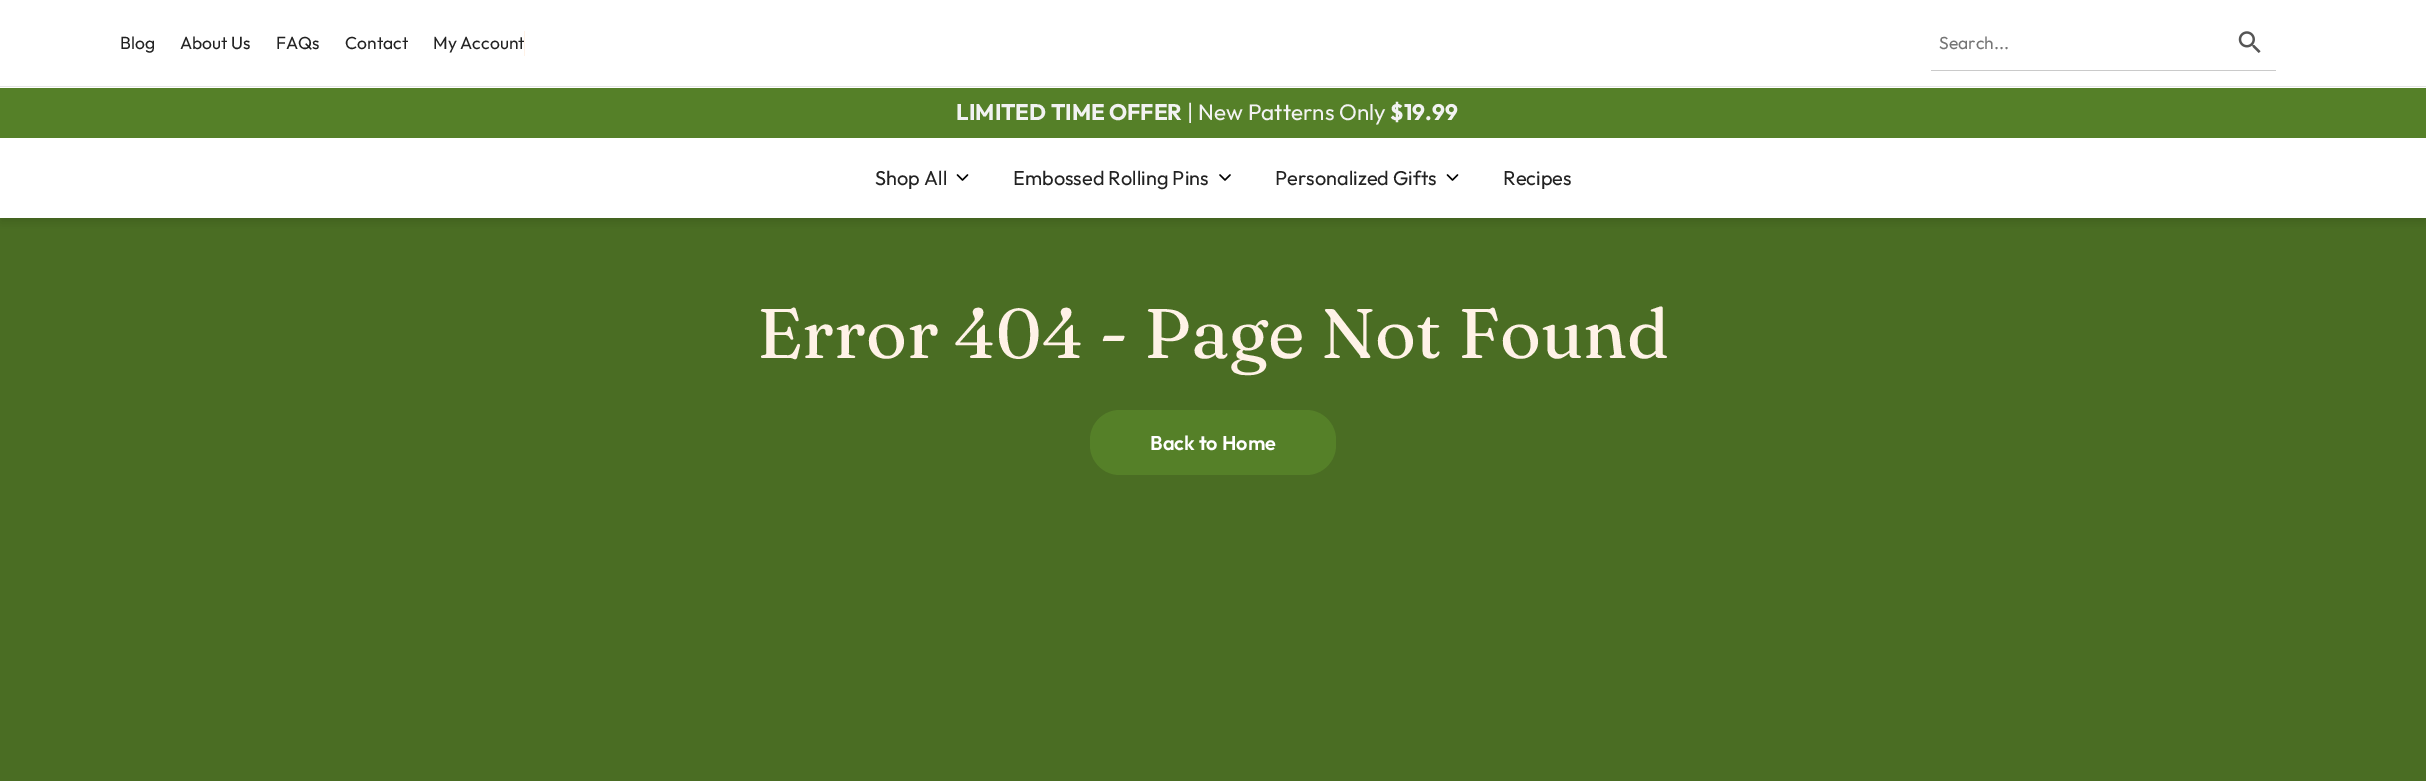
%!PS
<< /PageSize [2426 781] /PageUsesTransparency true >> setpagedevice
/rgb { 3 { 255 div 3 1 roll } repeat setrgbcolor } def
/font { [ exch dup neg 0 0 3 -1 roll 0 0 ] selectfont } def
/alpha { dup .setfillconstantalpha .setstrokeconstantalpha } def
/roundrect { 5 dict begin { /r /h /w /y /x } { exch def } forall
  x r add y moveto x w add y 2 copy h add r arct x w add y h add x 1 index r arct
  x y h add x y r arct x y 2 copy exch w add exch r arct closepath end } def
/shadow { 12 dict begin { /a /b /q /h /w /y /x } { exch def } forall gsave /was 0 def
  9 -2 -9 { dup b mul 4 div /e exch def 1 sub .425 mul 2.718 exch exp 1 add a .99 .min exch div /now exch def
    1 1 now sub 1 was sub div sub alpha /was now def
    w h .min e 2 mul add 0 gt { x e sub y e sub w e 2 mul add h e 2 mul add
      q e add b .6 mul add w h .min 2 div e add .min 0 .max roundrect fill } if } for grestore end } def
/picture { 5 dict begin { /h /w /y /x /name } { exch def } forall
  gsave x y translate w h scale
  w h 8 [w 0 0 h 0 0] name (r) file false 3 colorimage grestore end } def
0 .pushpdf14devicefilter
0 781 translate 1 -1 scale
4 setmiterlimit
255 255 255 rgb
0 0 2426 781 rectfill
[
  [0 86 2426 1 230 230 230]
  [524 31 1 25 255 242 231]
  [1931 70 345 1 202 202 202]
] { aload pop rgb rectfill } forall
(img/1.rgb) 2238 31 23 22 picture
74 109 35 rgb
0 218 2426 563 rectfill
0 0 0 rgb
0 143 2426 80 0 5 0.12 shadow
85 128 40 rgb
0 88 2426 50 rectfill
255 255 255 rgb
0 138 2426 80 rectfill
(img/2.rgb) 956 174 13 7 picture
(img/3.rgb) 1219 174 12 7 picture
(img/2.rgb) 1446 174 13 7 picture
85 128 40 rgb
1090 410 246 65 30 roundrect fill
/Outfit-Regular 17.5 font
34 34 34 rgb
[
  [(Blog) 120 49]
  [(About Us) 180 49]
  [(FAQs) 276 49]
  [(Contact) 345 49]
  [(My Account) 433 49]
] { aload pop moveto show } forall
117 117 117 rgb
1939 49 moveto (Search...) show
/Outfit-Bold 22.5 font
242 242 242 rgb
956 120 moveto (LIMITED TIME OFFER) show
/Outfit-Regular 22.5 font
1187 120 moveto (| New Patterns Only) show
/Outfit-Bold 22.5 font
1390 120 moveto ($19.99) show
/Outfit-Regular 20 font
34 34 34 rgb
[
  [(Shop All) 875 185]
  [(Embossed Rolling Pins) 1013 185]
  [(Personalized Gifts) 1275 185]
  [(Recipes) 1503 185]
] { aload pop moveto show } forall
/Fraunces-Regular 70 font
255 242 231 rgb
757 358 moveto (Error 404 - Page Not Found) show
/Outfit-SemiBold 20 font
255 255 255 rgb
1150 450 moveto (Back to Home) show
.poppdf14devicefilter showpage
